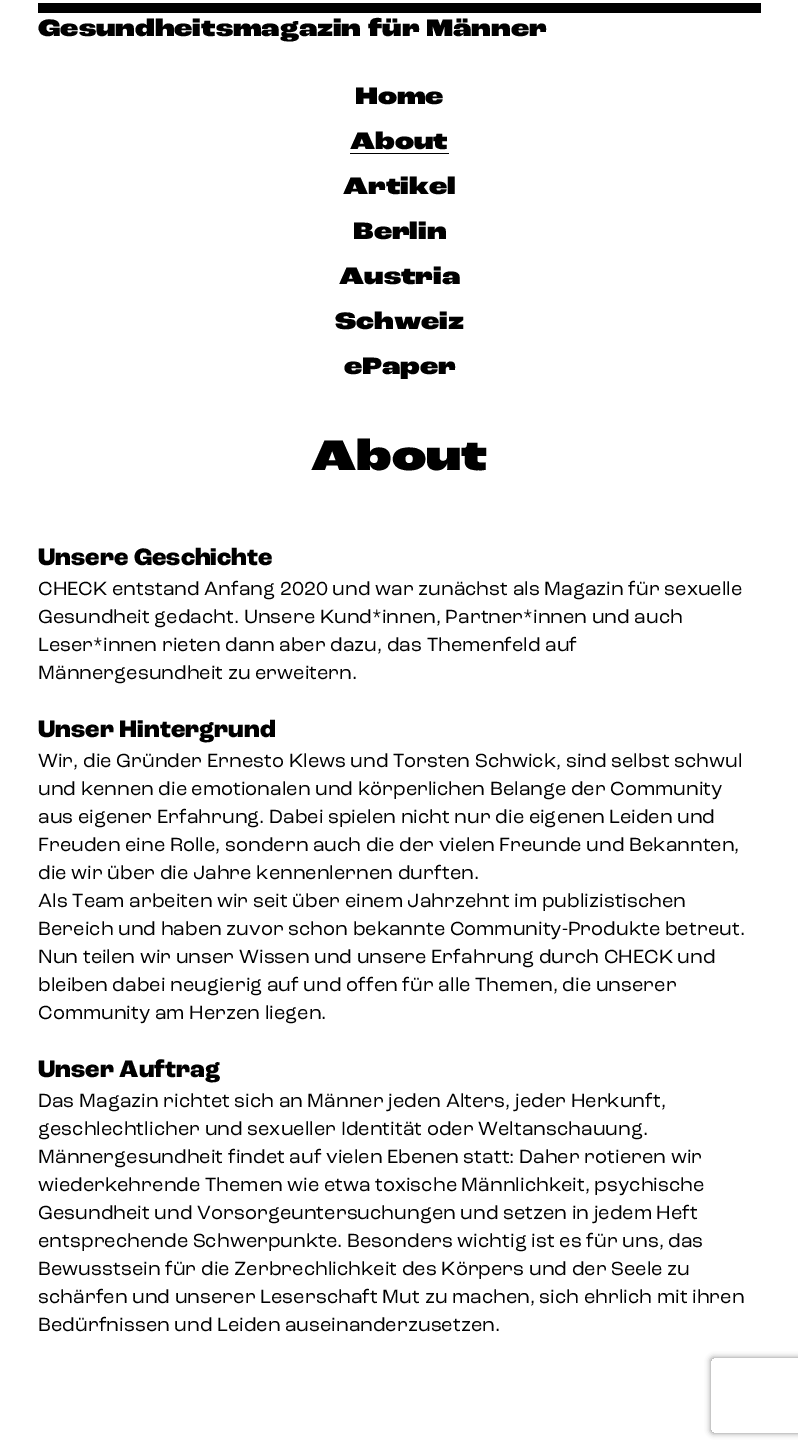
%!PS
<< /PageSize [798 1450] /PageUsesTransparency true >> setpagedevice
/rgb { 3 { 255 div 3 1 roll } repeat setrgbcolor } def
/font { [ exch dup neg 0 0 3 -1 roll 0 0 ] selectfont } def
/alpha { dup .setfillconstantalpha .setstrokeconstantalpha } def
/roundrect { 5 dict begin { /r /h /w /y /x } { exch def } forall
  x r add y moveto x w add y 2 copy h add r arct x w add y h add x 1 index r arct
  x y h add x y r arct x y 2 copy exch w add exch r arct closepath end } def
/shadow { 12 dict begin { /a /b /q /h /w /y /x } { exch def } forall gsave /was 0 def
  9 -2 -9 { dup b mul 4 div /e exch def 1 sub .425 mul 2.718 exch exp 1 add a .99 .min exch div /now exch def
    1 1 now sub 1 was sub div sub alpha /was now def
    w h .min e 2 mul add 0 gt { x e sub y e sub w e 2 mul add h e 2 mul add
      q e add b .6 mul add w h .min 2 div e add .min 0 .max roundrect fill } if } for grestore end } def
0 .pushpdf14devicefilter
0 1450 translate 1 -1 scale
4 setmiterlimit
255 255 255 rgb
0 0 798 1450 rectfill
0 0 0 rgb
38 3 723 10 rectfill
350 153 99 1 rectfill
gsave
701 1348 moveto 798 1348 lineto 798 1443 lineto 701 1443 lineto closepath 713.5 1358 moveto 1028.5 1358 lineto 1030 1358 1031 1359 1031 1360.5 curveto 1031 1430.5 lineto 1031 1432 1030 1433 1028.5 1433 curveto 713.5 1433 lineto 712 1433 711 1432 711 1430.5 curveto 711 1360.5 lineto 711 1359 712 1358 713.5 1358 curveto closepath eoclip newpath
128 128 128 rgb
711 1358 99 75 2.5 3 1 shadow
grestore
/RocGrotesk-Black 25 font
[
  [(Gesundheitsmagazin für Männer) 38 36]
  [(Home) 355 104]
  [(About) 350 149]
  [(Artikel) 343 194]
  [(Berlin) 353 239]
  [(Austria) 339 284]
  [(Schweiz) 335 329]
  [(ePaper) 344 374]
] { aload pop moveto show } forall
/RocGrotesk-Black 45 font
311 470 moveto (About) show
/RocGrotesk-ExtraBold 25 font
38 565 moveto (Unsere Geschichte) show
/RocGrotesk-Regular 20 font
[
  [(CHECK entstand Anfang 2020 und war zunächst als Magazin für sexuelle) 38 595]
  [(Gesundheit gedacht. Unsere Kund*innen, Partner*innen und auch) 38 623]
  [(Leser*innen rieten dann aber dazu, das Themenfeld auf) 38 651]
  [(Männergesundheit zu erweitern.) 38 679]
] { aload pop moveto show } forall
/RocGrotesk-ExtraBold 25 font
38 737 moveto (Unser Hintergrund) show
/RocGrotesk-Regular 20 font
[
  [(Wir, die Gründer Ernesto Klews und Torsten Schwick, sind selbst schwul) 38 767]
  [(und kennen die emotionalen und körperlichen Belange der Community) 38 795]
  [(aus eigener Erfahrung. Dabei spielen nicht nur die eigenen Leiden und) 38 823]
  [(Freuden eine Rolle, sondern auch die der vielen Freunde und Bekannten,) 38 851]
  [(die wir über die Jahre kennenlernen durften.) 38 879]
  [(Als Team arbeiten wir seit über einem Jahrzehnt im publizistischen) 38 907]
  [(Bereich und haben zuvor schon bekannte Community-Produkte betreut.) 38 935]
  [(Nun teilen wir unser Wissen und unsere Erfahrung durch CHECK und) 38 963]
  [(bleiben dabei neugierig auf und offen für alle Themen, die unserer) 38 991]
  [(Community am Herzen liegen.) 38 1019]
] { aload pop moveto show } forall
/RocGrotesk-ExtraBold 25 font
38 1077 moveto (Unser Auftrag) show
/RocGrotesk-Regular 20 font
[
  [(Das Magazin richtet sich an Männer jeden Alters, jeder Herkunft,) 38 1107]
  [(geschlechtlicher und sexueller Identität oder Weltanschauung.) 38 1135]
  [(Männergesundheit findet auf vielen Ebenen statt: Daher rotieren wir) 38 1163]
  [(wiederkehrende Themen wie etwa toxische Männlichkeit, psychische) 38 1191]
  [(Gesundheit und Vorsorgeuntersuchungen und setzen in jedem Heft) 38 1219]
  [(entsprechende Schwerpunkte. Besonders wichtig ist es für uns, das) 38 1247]
  [(Bewusstsein für die Zerbrechlichkeit des Körpers und der Seele zu) 38 1275]
  [(schärfen und unserer Leserschaft Mut zu machen, sich ehrlich mit ihren) 38 1303]
  [(Bedürfnissen und Leiden auseinanderzusetzen.) 38 1331]
] { aload pop moveto show } forall
.poppdf14devicefilter showpage
